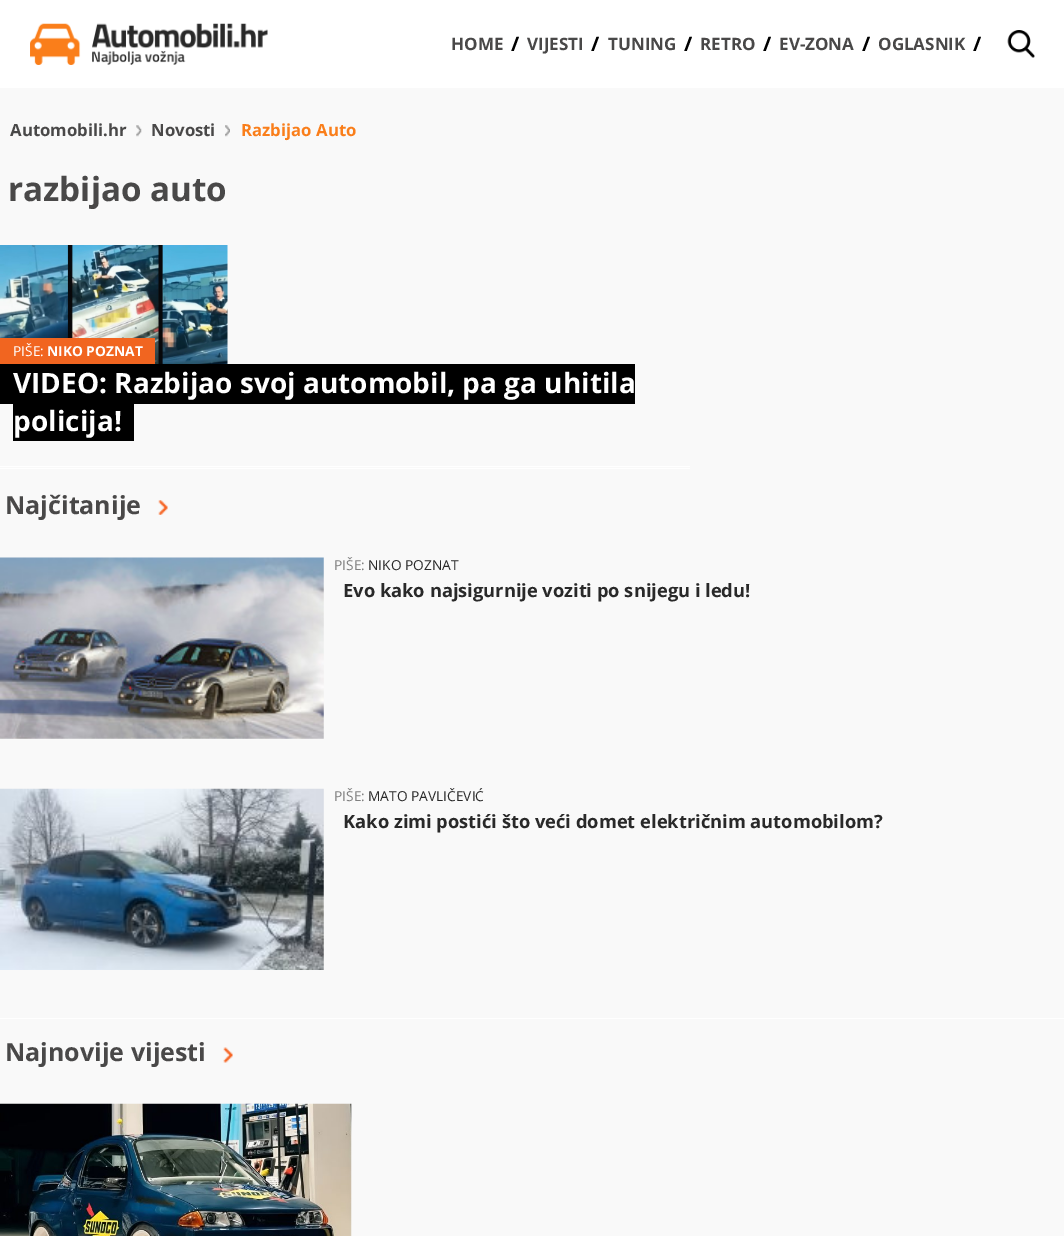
%!PS
<< /PageSize [1064 1236] >> setpagedevice
/rgb { 3 { 255 div 3 1 roll } repeat setrgbcolor } def
/font { [ exch dup neg 0 0 3 -1 roll 0 0 ] selectfont } def
/picture { 5 dict begin { /h /w /y /x /name } { exch def } forall
  gsave x y translate w h scale
  w h 8 [w 0 0 h 0 0] name (r) file false 3 colorimage grestore end } def
0 1236 translate 1 -1 scale
4 setmiterlimit
249 249 249 rgb
0 0 1064 1236 rectfill
255 255 255 rgb
0 0 1064 88 rectfill
(img/1.rgb) 30 23 238 42 picture
(img/2.rgb) 1007 30 28 28 picture
(img/3.rgb) 136 125 6 12 picture
(img/4.rgb) 225 125 5 12 picture
(img/5.rgb) 0 245 228 119 picture
[
  [0 338 155 26 241 101 32]
  [0 364 635 40 0 0 0]
  [13 404 121 37 0 0 0]
  [0 466 690 1 255 255 255]
  [0 468 690 1 255 255 255]
] { aload pop rgb rectfill } forall
(img/6.rgb) 158 500 10 15 picture
(img/7.rgb) 0 557 324 182 picture
(img/8.rgb) 0 788 324 182 picture
0 1018 1064 1 rectfill
(img/9.rgb) 223 1047 10 16 picture
(img/10.rgb) 0 1103 352 133 picture
/OpenSans-Bold 17 font
73 72 72 rgb
451 50 moveto (HOME) show
/OpenSans-Bold 20 font
0 0 0 rgb
511 51 moveto (/) show
/OpenSans-Bold 17 font
73 72 72 rgb
527 50 moveto (VIJESTI) show
/OpenSans-Bold 20 font
0 0 0 rgb
591 51 moveto (/) show
/OpenSans-Bold 17 font
73 72 72 rgb
608 50 moveto (TUNING) show
/OpenSans-Bold 20 font
0 0 0 rgb
684 51 moveto (/) show
/OpenSans-Bold 17 font
73 72 72 rgb
700 50 moveto (RETRO) show
/OpenSans-Bold 20 font
0 0 0 rgb
763 51 moveto (/) show
/OpenSans-Bold 17 font
73 72 72 rgb
779 50 moveto (EV-ZONA) show
/OpenSans-Bold 20 font
0 0 0 rgb
862 51 moveto (/) show
/OpenSans-Bold 17 font
73 72 72 rgb
878 50 moveto (OGLASNIK) show
/OpenSans-Bold 20 font
0 0 0 rgb
973 51 moveto (/) show
/OpenSans-Bold 16.75 font
73 72 72 rgb
10 136 moveto (Automobili.hr) show
151 136 moveto (Novosti) show
250 126 26 rgb
241 136 moveto (Razbijao Auto) show
/OpenSans-Bold 33.25 font
73 72 72 rgb
8 201 moveto (razbijao auto) show
/OpenSans-Regular 13.75 font
255 255 255 rgb
13 356 moveto (PIŠE:) show
/OpenSans-Bold 13.75 font
47 356 moveto (NIKO POZNAT) show
/OpenSans-Bold 28 font
13 393 moveto (VIDEO: Razbijao svoj automobil, pa ga uhitila) show
13 431 moveto (policija!) show
/OpenSans-Bold 25 font
73 72 72 rgb
5 514 moveto (Najčitanije) show
/OpenSans-Regular 13.75 font
128 128 128 rgb
334 570 moveto (PIŠE:) show
41 41 41 rgb
368 570 moveto (NIKO POZNAT) show
/OpenSans-Bold 18.3 font
343 597 moveto (Evo kako najsigurnije voziti po snijegu i ledu!) show
/OpenSans-Regular 13.75 font
128 128 128 rgb
334 801 moveto (PIŠE:) show
41 41 41 rgb
368 801 moveto (MATO PAVLIČEVIĆ) show
/OpenSans-Bold 18.3 font
343 828 moveto (Kako zimi postići što veći domet električnim automobilom?) show
/OpenSans-Bold 25 font
73 72 72 rgb
5 1061 moveto (Najnovije vijesti) show
showpage
